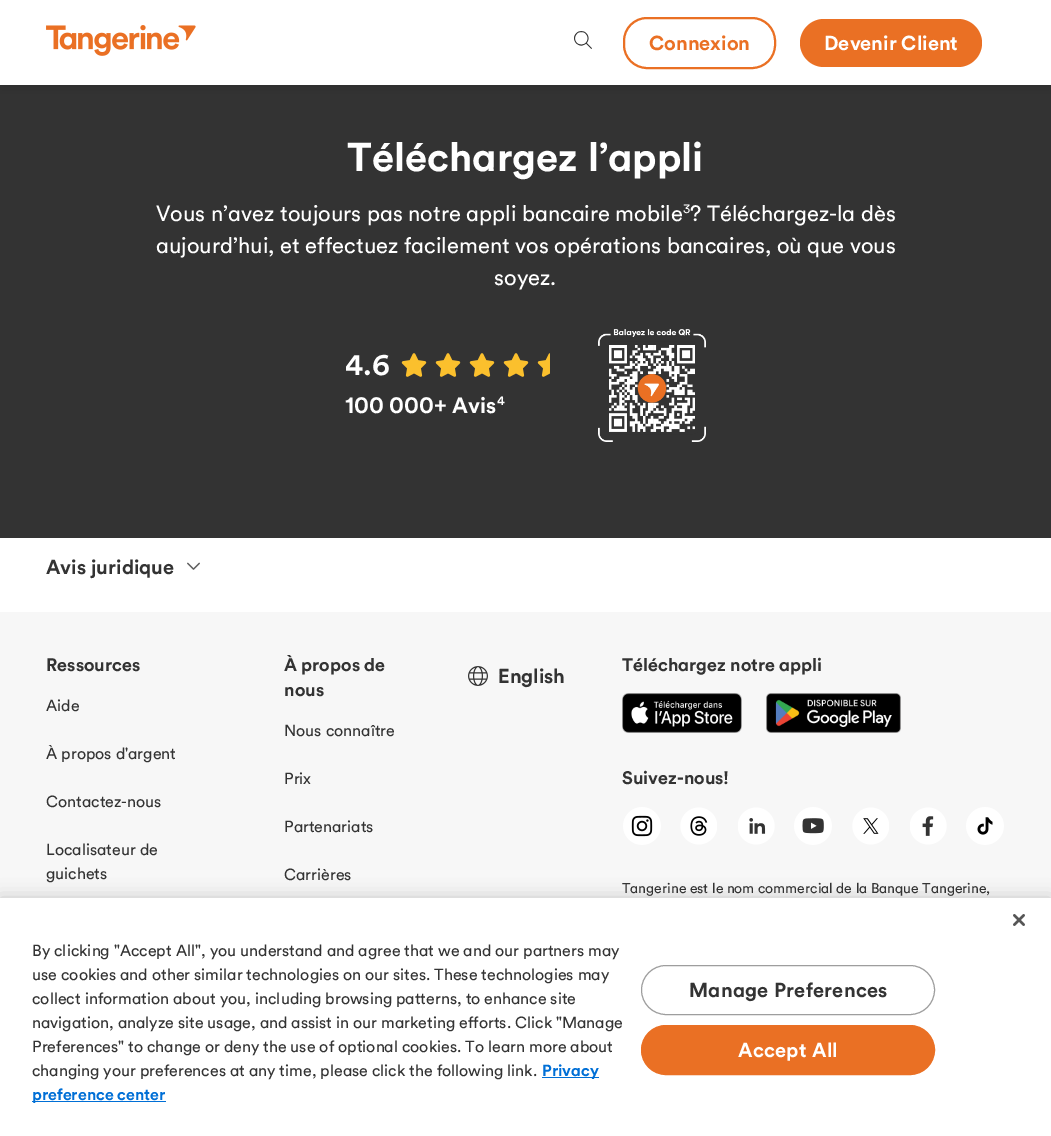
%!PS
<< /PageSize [1051 1136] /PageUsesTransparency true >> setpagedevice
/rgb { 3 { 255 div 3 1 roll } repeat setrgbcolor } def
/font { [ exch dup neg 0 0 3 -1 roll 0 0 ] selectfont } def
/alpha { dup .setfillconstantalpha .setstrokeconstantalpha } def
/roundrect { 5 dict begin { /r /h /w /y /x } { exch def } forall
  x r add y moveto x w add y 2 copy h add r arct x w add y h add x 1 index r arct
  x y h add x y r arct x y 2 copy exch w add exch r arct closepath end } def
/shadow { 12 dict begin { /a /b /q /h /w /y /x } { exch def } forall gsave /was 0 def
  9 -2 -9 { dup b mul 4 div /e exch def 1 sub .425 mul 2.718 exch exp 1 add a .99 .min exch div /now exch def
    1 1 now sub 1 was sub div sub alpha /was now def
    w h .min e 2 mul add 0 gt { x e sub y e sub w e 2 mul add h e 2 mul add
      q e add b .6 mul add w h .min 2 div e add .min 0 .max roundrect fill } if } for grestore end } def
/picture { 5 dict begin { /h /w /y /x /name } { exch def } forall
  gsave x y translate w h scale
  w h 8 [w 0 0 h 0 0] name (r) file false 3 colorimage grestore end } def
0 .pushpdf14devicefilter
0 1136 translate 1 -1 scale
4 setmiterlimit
255 255 255 rgb
0 0 1051 1136 rectfill
51 51 51 rgb
0 85 1051 453 rectfill
0 0 0 rgb
0 0 1051 85 0 7.5 0.15 shadow
255 255 255 rgb
0 0 1051 85 rectfill
(img/1.rgb) 46 25 150 31 picture
(img/2.rgb) 574 31 18 18 picture
234 112 36 rgb
2 setlinewidth
624 18 151 50 23 roundrect stroke
800 19 182 48 24 roundrect fill
(img/3.rgb) 401 353 149 24 picture
(img/4.rgb) 598 329 108 113 picture
(img/5.rgb) 187 562 13 8 picture
247 247 247 rgb
0 612 1051 286 rectfill
(img/6.rgb) 622 693 120 40 picture
(img/7.rgb) 766 693 135 40 picture
(img/8.rgb) 468 666 20 20 picture
(img/9.rgb) 623 807 38 38 picture
(img/10.rgb) 680 807 37 38 picture
(img/11.rgb) 738 807 37 38 picture
(img/12.rgb) 794 807 38 38 picture
(img/13.rgb) 852 807 37 38 picture
(img/14.rgb) 910 807 37 38 picture
(img/15.rgb) 966 807 38 38 picture
0 0 0 rgb
0 898 1051 238 0 9 0.2 shadow
255 255 255 rgb
0 898 1051 238 rectfill
(img/16.rgb) 1013 914 12 12 picture
0 111 214 rgb
542 1077 57 1 rectfill
32 1101 134 1 rectfill
158 158 158 rgb
1 setlinewidth
641.5 965.5 293 49 24.5 roundrect stroke
234 112 36 rgb
641.5 1025.5 293 49 24.5 roundrect gsave fill grestore
stroke
/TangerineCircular-Bold 20 font
649 50 moveto (Connexion) show
255 255 255 rgb
824 50 moveto (Devenir Client) show
/TangerineCircular-Bold 40 font
347 171 moveto (Téléchargez l’appli) show
/TangerineCircular-Regular 22 font
156 221 moveto (Vous n’avez toujours pas notre appli bancaire mobile) show
/TangerineCircular-Regular 12 font
683 213 moveto (3) show
/TangerineCircular-Regular 22 font
[
  [(? Téléchargez-la dès) 690 221]
  [(aujourd’hui, et effectuez facilement vos opérations bancaires, où que vous) 156 253]
  [(soyez.) 494 285]
] { aload pop moveto show } forall
/TangerineCircular-Bold 28 font
345 375 moveto (4.6) show
/TangerineCircular-Bold 22 font
345 413 moveto (100 000+ Avis) show
/TangerineCircular-Bold 12 font
497 405 moveto (4) show
/TangerineCircular-Bold 20 font
51 51 51 rgb
46 574 moveto (Avis juridique) show
/TangerineCircular-Bold 18 font
46 671 moveto (Ressources) show
/TangerineCircular-Regular 16 font
[
  [(Aide) 46 711]
  [(À propos d'argent) 46 759]
  [(Contactez-nous) 46 807]
  [(Localisateur de) 46 855]
  [(guichets) 46 879]
] { aload pop moveto show } forall
/TangerineCircular-Bold 18 font
284 671 moveto (À propos de) show
284 696 moveto (nous) show
/TangerineCircular-Regular 16 font
[
  [(Nous connaître) 284 736]
  [(Prix) 284 784]
  [(Partenariats) 284 832]
  [(Carrières) 284 880]
] { aload pop moveto show } forall
/TangerineCircular-Bold 18 font
622 671 moveto (Téléchargez notre appli) show
/TangerineCircular-Bold 20 font
498 683 moveto (English) show
/TangerineCircular-Bold 18 font
622 784 moveto (Suivez-nous!) show
/TangerineCircular-Regular 14 font
622 893 moveto (Tangerine est le nom commercial de la Banque Tangerine,) show
/TangerineCircular-Regular 16 font
[
  [(By clicking "Accept All", you understand and agree that we and our partners may) 32 956]
  [(use cookies and other similar technologies on our sites. These technologies may) 32 980]
  [(collect information about you, including browsing patterns, to enhance site) 32 1004]
  [(navigation, analyze site usage, and assist in our marketing efforts. Click "Manage) 32 1028]
  [(Preferences" to change or deny the use of optional cookies. To learn more about) 32 1052]
  [(changing your preferences at any time, please click the following link.) 32 1076]
] { aload pop moveto show } forall
/TangerineCircular-Bold 16 font
0 111 214 rgb
542 1076 moveto (Privacy) show
32 1100 moveto (preference center) show
/TangerineCircular-Bold 20 font
51 51 51 rgb
689 997 moveto 0.25 0 (Manage Preferences) ashow
255 255 255 rgb
738 1057 moveto 0.25 0 (Accept All) ashow
.poppdf14devicefilter showpage
